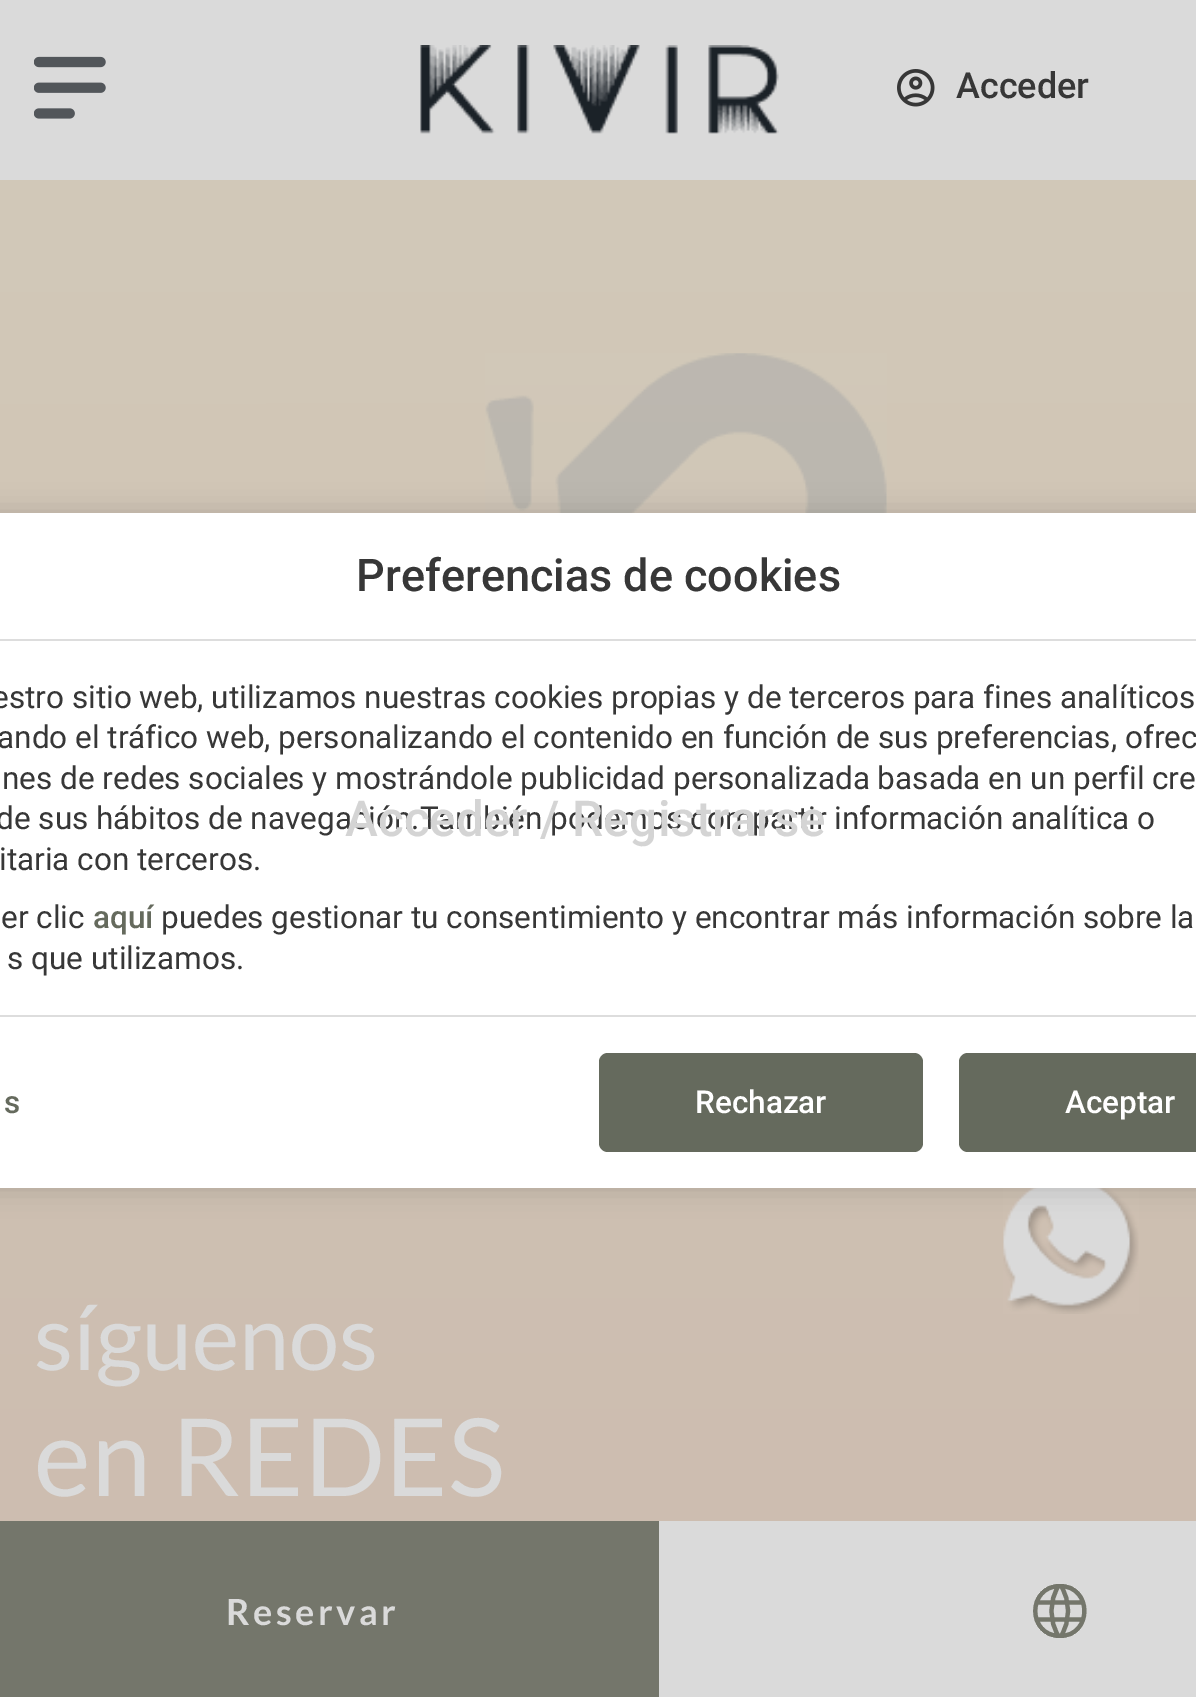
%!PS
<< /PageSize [1196 1697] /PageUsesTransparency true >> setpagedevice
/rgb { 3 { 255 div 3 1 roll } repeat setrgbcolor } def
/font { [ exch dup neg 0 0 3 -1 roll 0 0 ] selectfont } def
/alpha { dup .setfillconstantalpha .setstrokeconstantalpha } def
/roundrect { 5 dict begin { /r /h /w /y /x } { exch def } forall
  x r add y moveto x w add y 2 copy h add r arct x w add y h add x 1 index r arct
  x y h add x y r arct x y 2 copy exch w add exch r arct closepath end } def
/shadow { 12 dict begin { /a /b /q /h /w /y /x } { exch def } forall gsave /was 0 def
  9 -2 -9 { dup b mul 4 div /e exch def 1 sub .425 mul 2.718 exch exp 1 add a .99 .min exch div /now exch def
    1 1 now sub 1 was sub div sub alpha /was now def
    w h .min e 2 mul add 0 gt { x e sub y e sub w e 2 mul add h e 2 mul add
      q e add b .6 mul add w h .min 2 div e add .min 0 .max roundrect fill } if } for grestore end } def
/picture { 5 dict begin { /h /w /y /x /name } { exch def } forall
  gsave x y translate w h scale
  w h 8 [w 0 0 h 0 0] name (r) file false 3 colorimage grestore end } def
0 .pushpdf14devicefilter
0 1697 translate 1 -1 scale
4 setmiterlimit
255 255 255 rgb
0 0 1196 1697 rectfill
gsave 0 180 moveto 1196 180 lineto 1196 1521 lineto 0 1521 lineto closepath clip newpath
<< /ShadingType 2 /ColorSpace /DeviceRGB /Coords [598 0 599 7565] /Extend [true true] /Function << /FunctionType 3 /Domain [0 1] /Functions [<< /FunctionType 2 /Domain [0 1] /C0 [0.824 0.796 0.729] /C1 [0.8 0.725 0.678] /N 1 >> << /FunctionType 2 /Domain [0 1] /C0 [0.8 0.725 0.678] /C1 [0.71 0.725 0.722] /N 1 >> << /FunctionType 2 /Domain [0 1] /C0 [0.71 0.725 0.722] /C1 [0.58 0.58 0.616] /N 1 >>] /Bounds [0.26 0.68] /Encode [0 1 0 1 0 1] >> >> shfill grestore
218 218 218 rgb
0 0 1196 180 rectfill
(img/1.rgb) 34 56 72 63 picture
(img/2.rgb) 420 45 359 89 picture
(img/3.rgb) 897 69 38 38 picture
116 118 107 rgb
0 1521 659 176 rectfill
218 218 218 rgb
659 1521 537 176 rectfill
gsave
1033 1584 54 54 27 roundrect clip newpath
116 118 107 rgb
4.2 setlinewidth
1 setlinecap
1 setlinejoin
1060 1636 moveto 1092.5 1636 1092.5 1586 1060 1586 curveto 1027 1586 1027 1636 1060 1636 curveto closepath 1036.5 1602.5 moveto 1083 1602.5 lineto 1036.5 1619.5 moveto 1083 1619.5 lineto 1058.5 1586 moveto 1049 1601 1049 1621 1058.5 1636 curveto 1061 1586 moveto 1070.5 1601 1070.5 1621 1061 1636 curveto stroke
grestore
(img/4.rgb) 485 353 402 160 picture
(img/5.rgb) 1003 1188 136 126 picture
0 0 0 rgb
-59 513 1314 675 18 13.5 0.15 shadow
[
  [0 513 1196 675 255 255 255]
  [0 639 1196 2 221 221 221]
  [0 1015 1196 2 221 221 221]
] { aload pop rgb rectfill } forall
101 106 93 rgb
599 1053 324 99 9 roundrect fill
959 1053 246 99 9 roundrect fill
/Roboto-Medium 36 font
55 55 55 rgb
956 98 moveto (Acceder) show
/Lato-Bold 36 font
218 218 218 rgb
226 1625 moveto 3.5 0 (Reservar) ashow
/Roboto-Medium 45 font
55 55 55 rgb
356 591 moveto (Preferencias de cookies) show
/Roboto-Regular 31.5 font
[
  [(estro sitio web, utilizamos nuestras cookies propias y de terceros para fines analíticos) -8 708]
  [(ando el tráfico web, personalizando el contenido en función de sus preferencias, ofrec) -3 748]
  [(nes de redes sociales y mostrándole publicidad personalizada basada en un perfil cre) 2 789]
  [(de sus hábitos de navegación.También podemos compartir información analítica o) -4 829]
  [(itaria con terceros.) -1 870]
  [(er clic) 1 928]
] { aload pop moveto show } forall
/Roboto-Medium 31.5 font
101 106 93 rgb
93 928 moveto (aquí) show
/Roboto-Regular 31.5 font
55 55 55 rgb
161 928 moveto (puedes gestionar tu consentimiento y encontrar más información sobre la) show
7 969 moveto (s que utilizamos.) show
/Roboto-Medium 31.5 font
101 106 93 rgb
4 1113 moveto (s) show
255 255 255 rgb
695 1113 moveto (Rechazar) show
1065 1113 moveto (Aceptar) show
/Roboto-Medium 49.5 font
212 212 212 rgb
345 836 moveto (Acceder / Registrarse) show
/Lato-Regular 90 font
218 218 218 rgb
34 1370 moveto (síguenos) show
/Lato-Regular 108 font
34 1496 moveto (en REDES) show
.poppdf14devicefilter showpage
